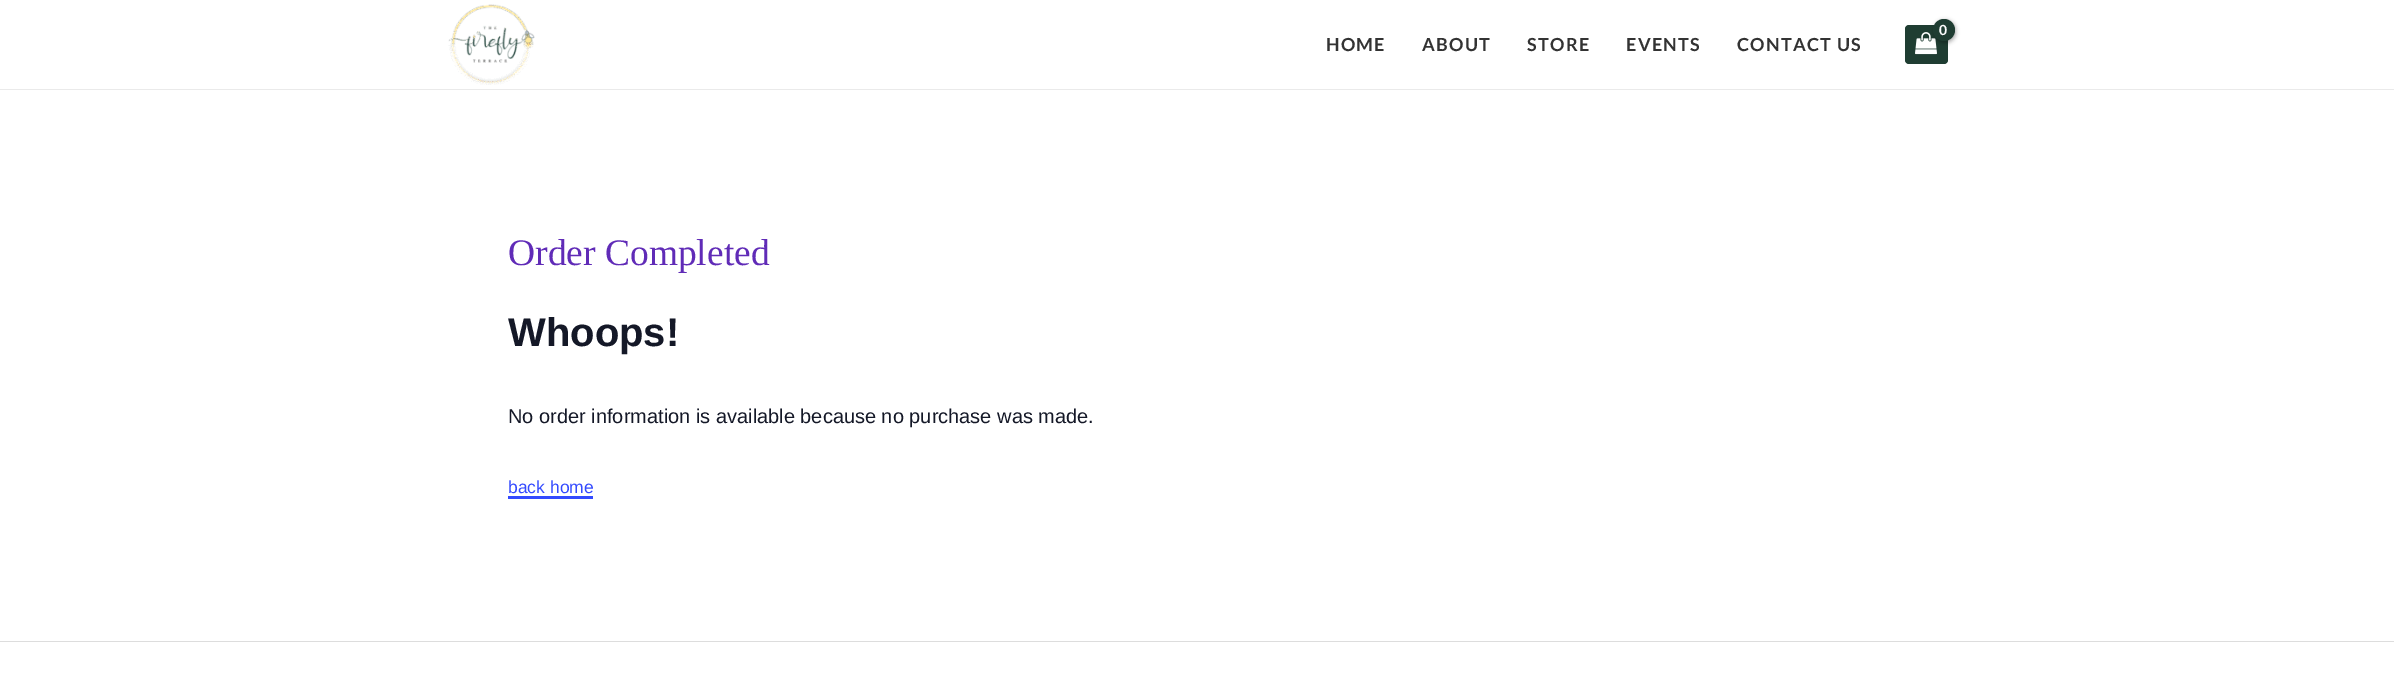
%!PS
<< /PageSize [2394 675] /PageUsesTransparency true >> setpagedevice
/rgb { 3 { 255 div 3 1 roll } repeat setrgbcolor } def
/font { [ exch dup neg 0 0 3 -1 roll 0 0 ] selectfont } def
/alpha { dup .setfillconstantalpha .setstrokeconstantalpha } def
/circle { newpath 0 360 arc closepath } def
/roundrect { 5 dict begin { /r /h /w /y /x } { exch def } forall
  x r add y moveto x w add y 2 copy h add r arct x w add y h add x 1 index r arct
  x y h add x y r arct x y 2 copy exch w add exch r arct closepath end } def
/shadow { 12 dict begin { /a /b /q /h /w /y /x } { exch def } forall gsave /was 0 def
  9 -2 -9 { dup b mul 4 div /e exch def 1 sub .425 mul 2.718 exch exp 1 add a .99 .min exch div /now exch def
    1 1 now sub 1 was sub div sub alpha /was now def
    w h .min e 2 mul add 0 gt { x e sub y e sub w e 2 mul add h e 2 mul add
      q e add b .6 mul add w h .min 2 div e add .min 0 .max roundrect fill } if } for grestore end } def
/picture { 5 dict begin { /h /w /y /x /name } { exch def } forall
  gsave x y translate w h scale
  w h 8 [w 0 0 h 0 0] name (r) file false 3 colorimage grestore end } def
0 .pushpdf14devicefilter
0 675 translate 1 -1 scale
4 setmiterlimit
255 255 255 rgb
0 0 2394 675 rectfill
234 234 234 rgb
0 89 2394 1 rectfill
(img/1.rgb) 448 4 87 81 picture
31 61 50 rgb
1905 25 43 39 4 roundrect fill
(img/2.rgb) 1915 32 22 23 picture
0 0 0 rgb
1934 20 22 23 11 2 0.3 shadow
31 61 50 rgb
1944 30 11 circle fill
51 74 255 rgb
508 496 85 3 rectfill
221 221 221 rgb
0 641 2394 1 rectfill
/Lato-Bold 14 font
255 255 255 rgb
1939 35 moveto -1 0 (0) ashow
/Lato-Bold 18 font
51 51 51 rgb
1326 51 moveto 1.25 0 (HOME) ashow
1422 51 moveto 1.25 0 (ABOUT) ashow
1527 51 moveto 1.25 0 (STORE) ashow
1626 51 moveto 1.25 0 (EVENTS) ashow
1737 51 moveto 1.25 0 (CONTACT US) ashow
/LiberationSerif-Regular 37.5 font
96 43 183 rgb
508 265 moveto (Order Completed) show
/LiberationSans-Bold 40 font
20 24 39 rgb
508 346 moveto (Whoops!) show
/LiberationSans-Regular 20 font
508 423 moveto (No order information is available because no purchase was made.) show
/LiberationSans-Regular 17.5 font
51 74 255 rgb
508 493 moveto (back home) show
.poppdf14devicefilter showpage
